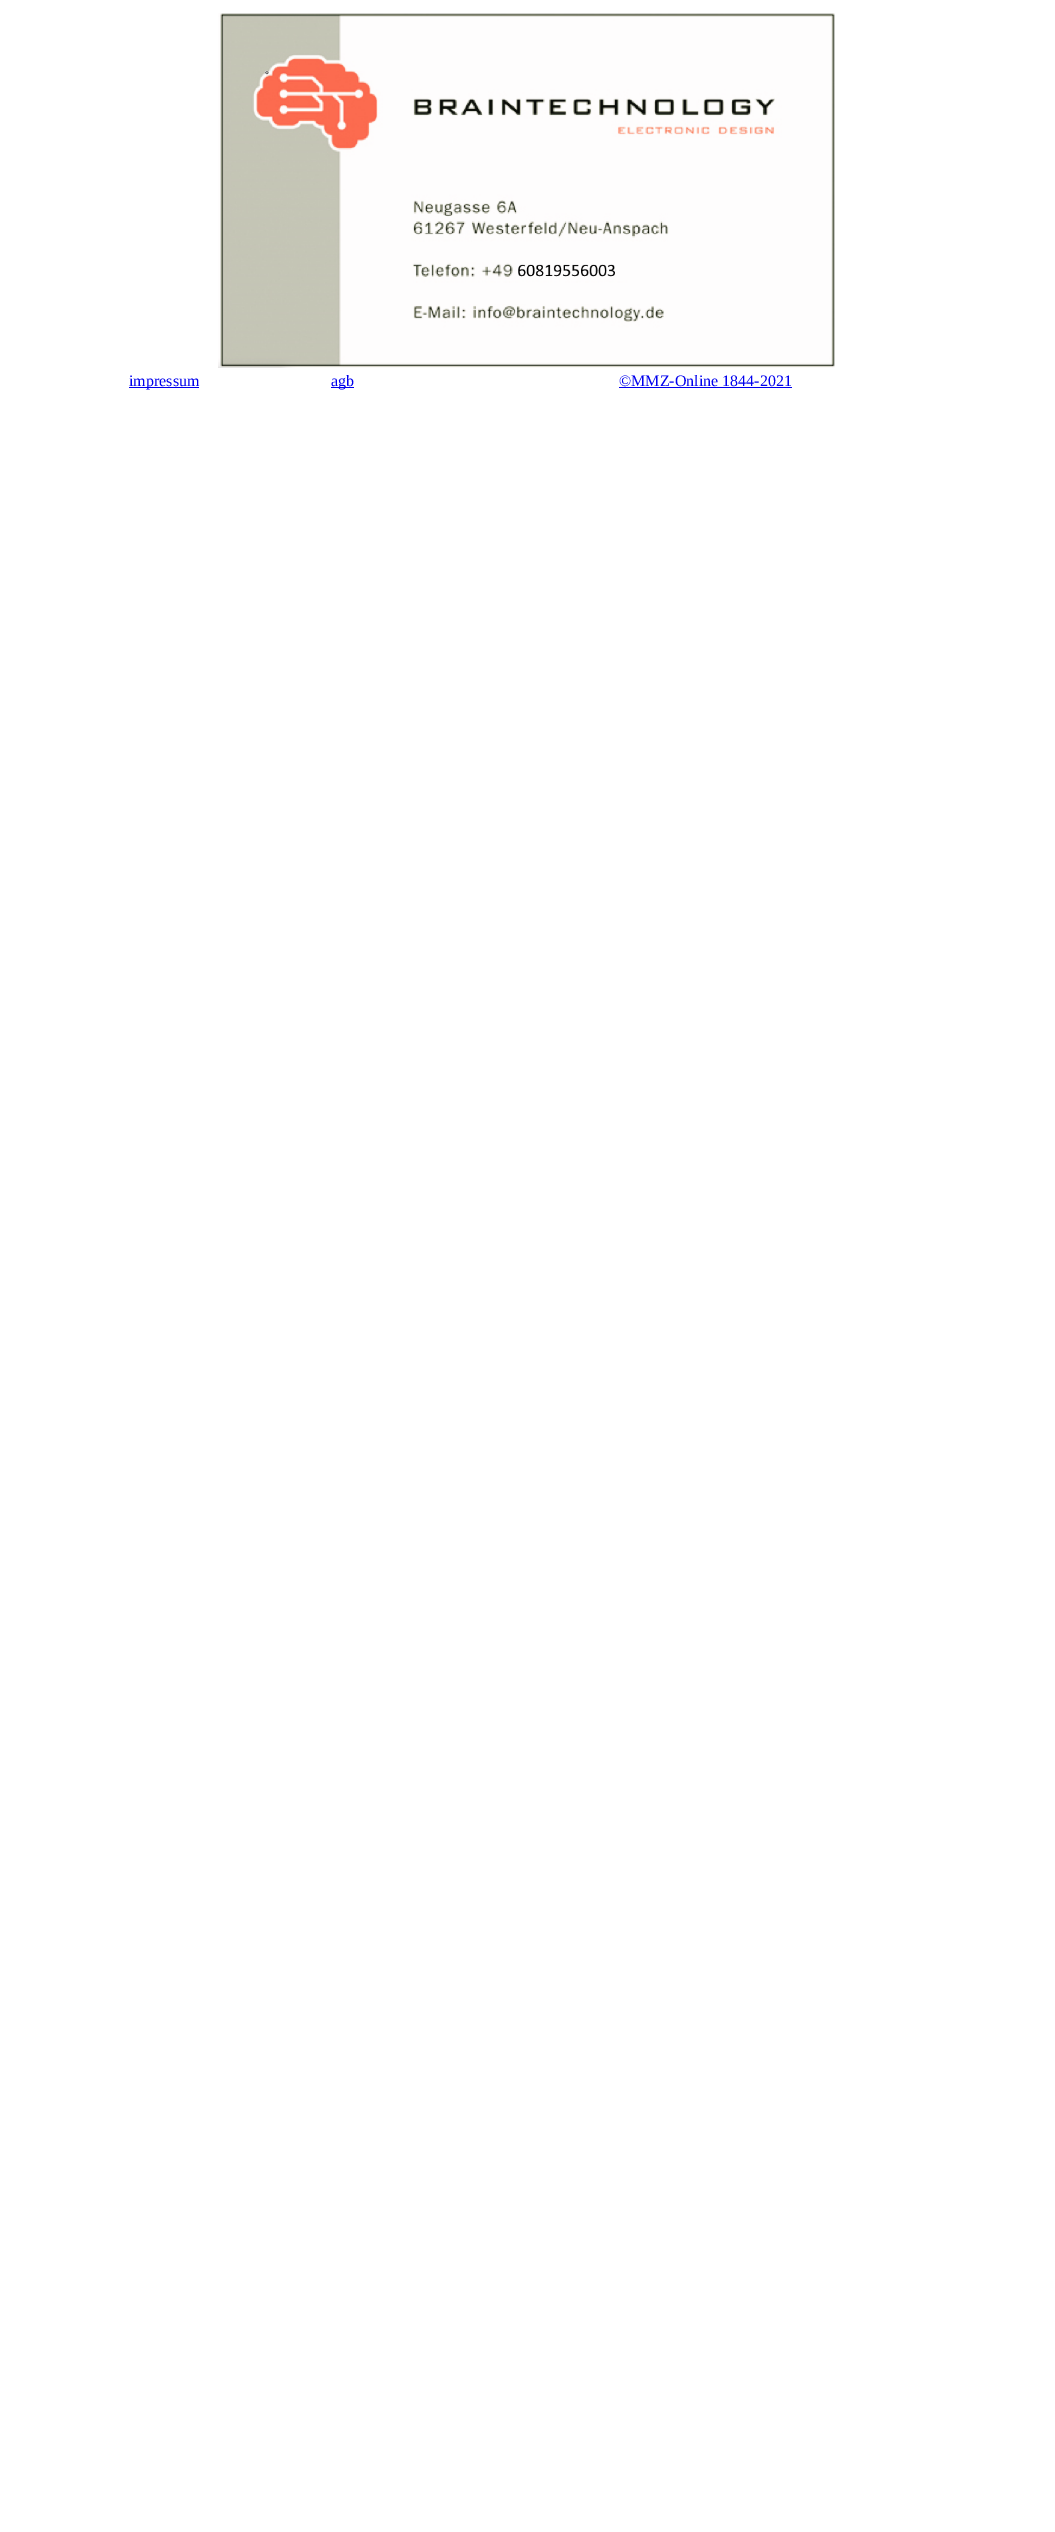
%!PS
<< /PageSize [1055 2532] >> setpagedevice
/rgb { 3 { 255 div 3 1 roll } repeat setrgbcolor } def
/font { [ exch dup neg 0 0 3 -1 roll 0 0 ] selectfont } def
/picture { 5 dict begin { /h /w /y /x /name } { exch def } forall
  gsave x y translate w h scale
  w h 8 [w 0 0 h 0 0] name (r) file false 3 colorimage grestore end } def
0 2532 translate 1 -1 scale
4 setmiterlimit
255 255 255 rgb
0 0 1055 2532 rectfill
(img/1.rgb) 218 13 617 355 picture
[
  [129 387 70 1 0 0 238]
  [331 387 23 1 0 0 238]
  [619 387 173 1 0 0 238]
] { aload pop rgb rectfill } forall
/LiberationSerif-Regular 16 font
[
  [(impressum) 129 386]
  [(agb) 331 386]
  [(©MMZ-Online 1844-2021) 619 386]
] { aload pop moveto show } forall
showpage
